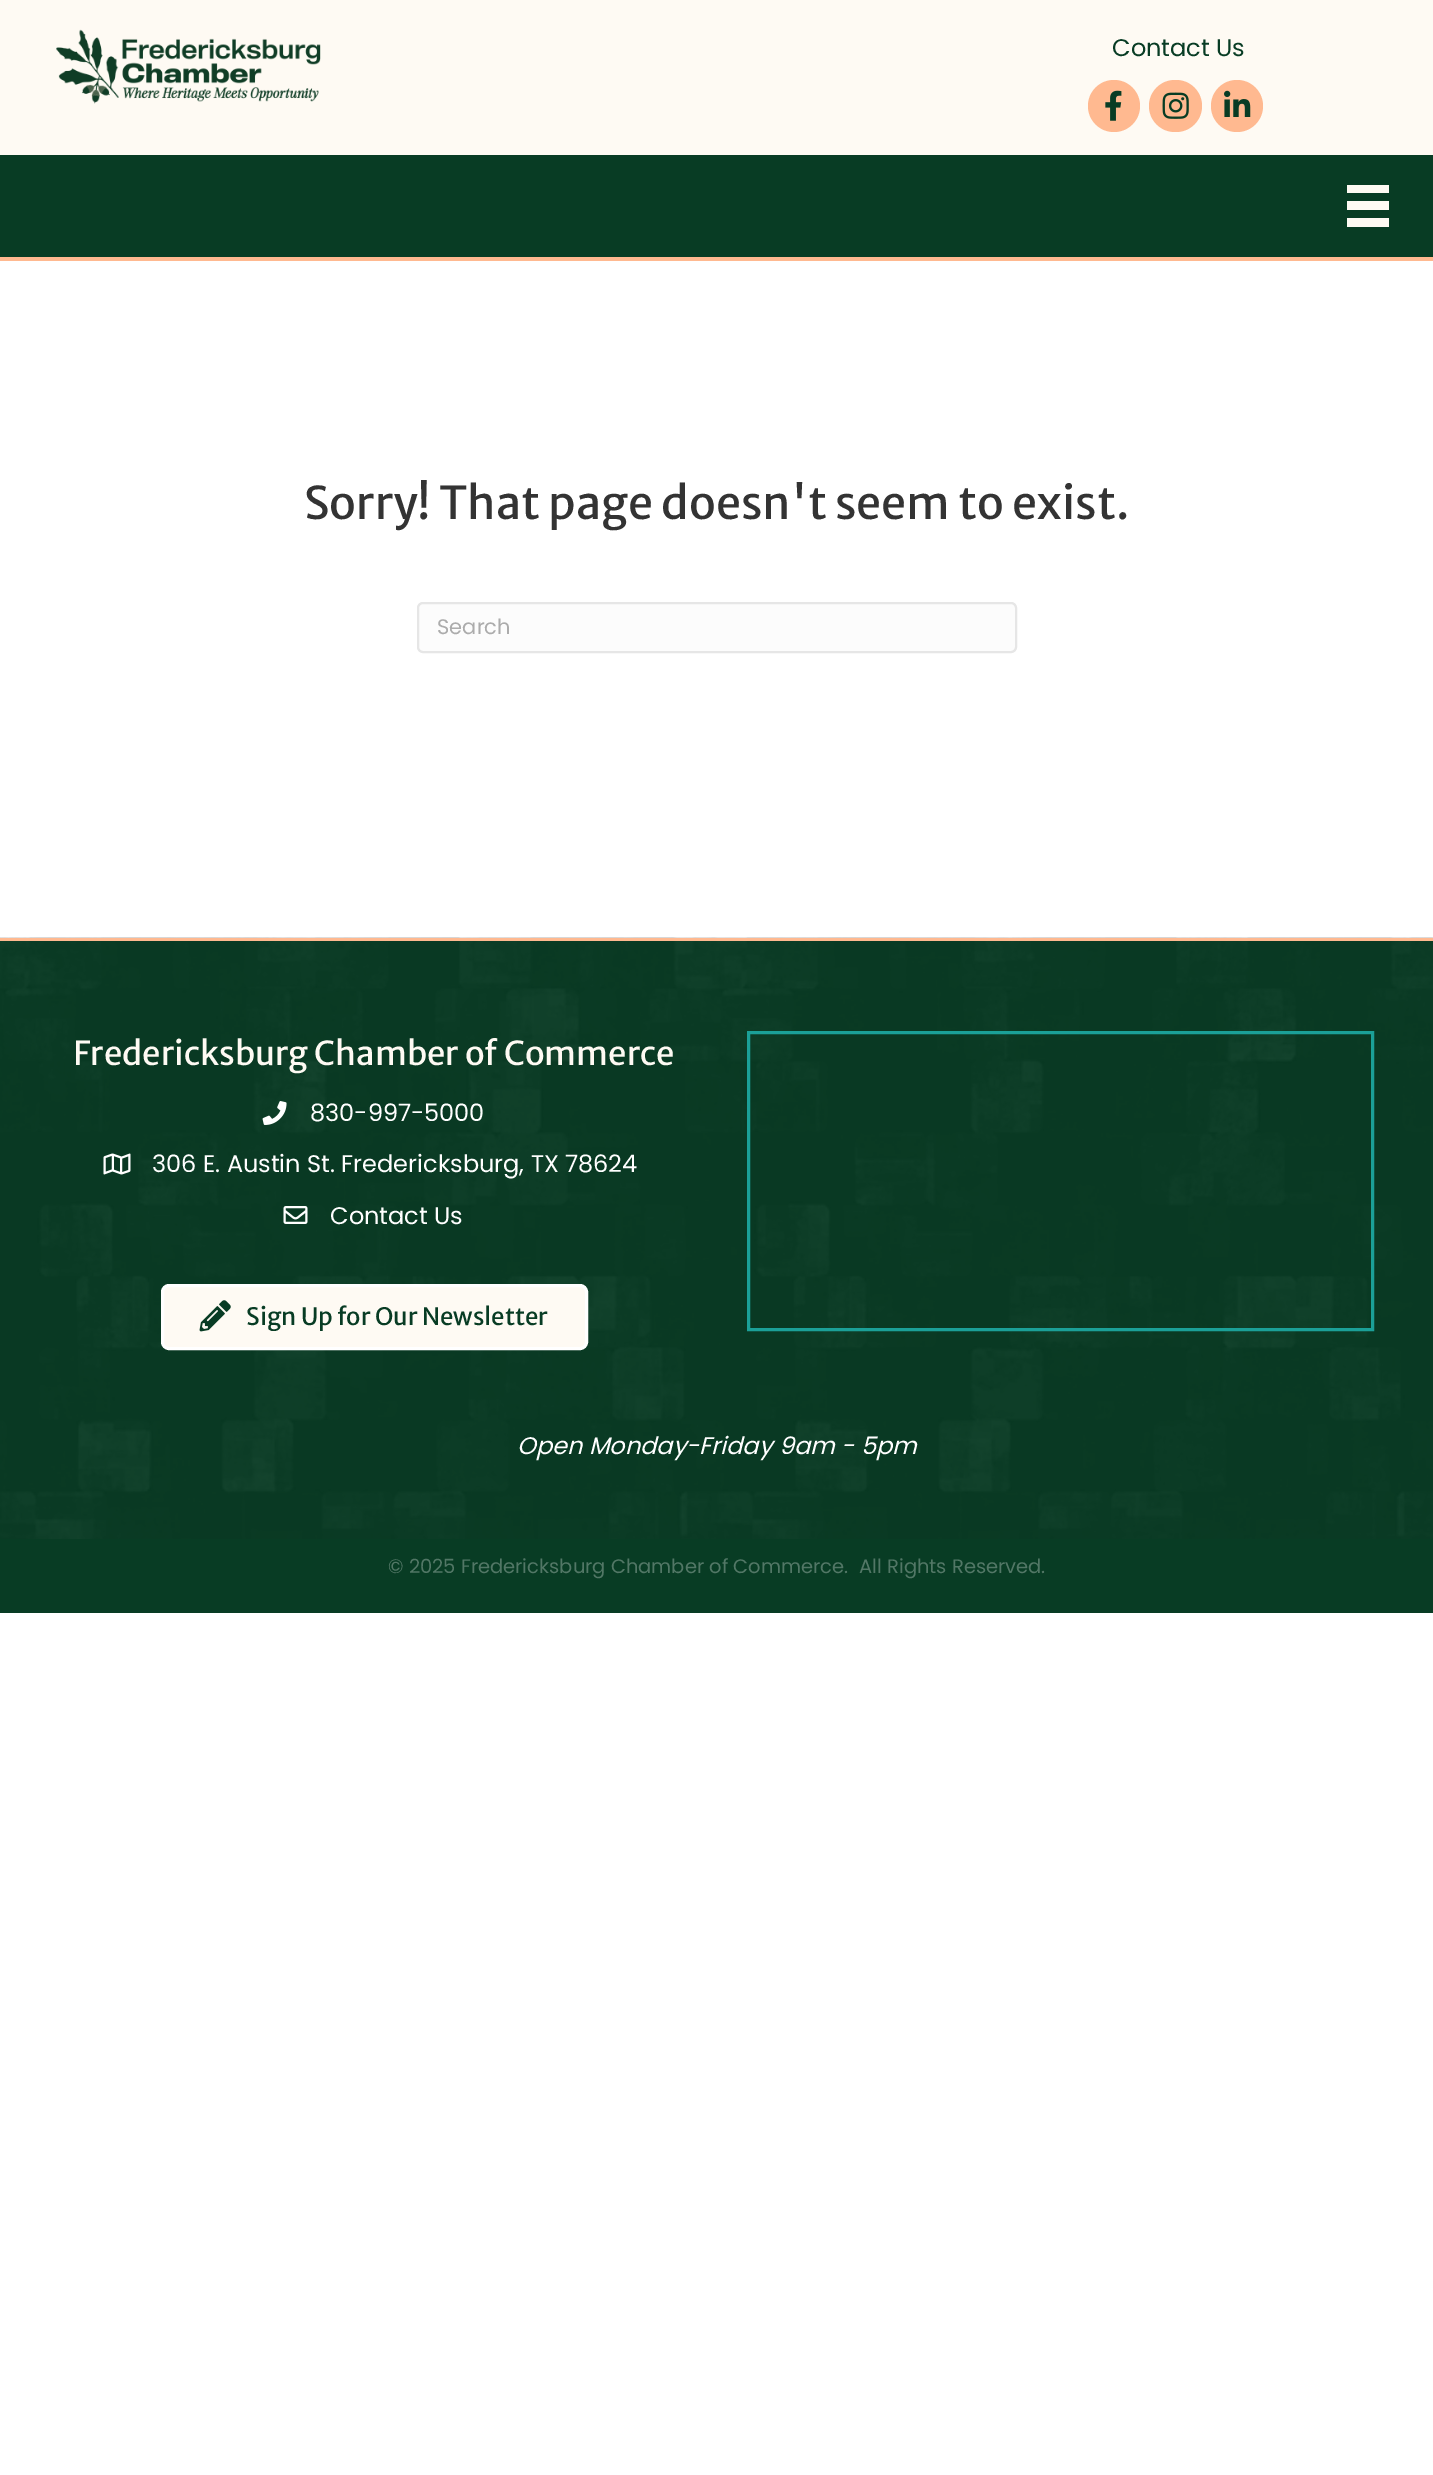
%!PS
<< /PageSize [1433 2475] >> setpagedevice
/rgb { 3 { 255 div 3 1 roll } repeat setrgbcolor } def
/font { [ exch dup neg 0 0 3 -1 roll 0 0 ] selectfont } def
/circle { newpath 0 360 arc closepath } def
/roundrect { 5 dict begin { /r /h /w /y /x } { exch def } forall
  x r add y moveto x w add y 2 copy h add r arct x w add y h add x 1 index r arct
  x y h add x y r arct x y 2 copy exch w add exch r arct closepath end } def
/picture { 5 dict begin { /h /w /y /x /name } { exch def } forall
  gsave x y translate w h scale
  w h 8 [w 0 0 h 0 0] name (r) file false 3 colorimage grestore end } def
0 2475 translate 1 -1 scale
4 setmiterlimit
255 255 255 rgb
0 0 1433 2475 rectfill
254 250 243 rgb
0 0 1433 155 rectfill
(img/1.rgb) 56 29 265 75 picture
255 185 144 rgb
1114 106 26 circle fill
(img/2.rgb) 1105 90 17 31 picture
1149 80 53 52 26 roundrect fill
(img/3.rgb) 1162 92 27 27 picture
1237 106 26 circle fill
(img/4.rgb) 1224 90 27 27 picture
[
  [0 155 1433 102 8 60 36]
  [0 257 1433 4 255 185 144]
  [1347 185 42 8 254 250 243]
  [1347 201 42 9 254 250 243]
  [1347 218 42 9 254 250 243]
] { aload pop rgb rectfill } forall
252 252 252 rgb
418 603 598 49 5 roundrect gsave fill grestore
230 230 230 rgb
2 setlinewidth
stroke
8 60 36 rgb
0 941 1433 672 rectfill
(img/5.rgb) 0 937 1433 602 picture
255 185 144 rgb
0 938 1433 3 rectfill
(img/6.rgb) 262 1101 25 24 picture
(img/7.rgb) 103 1153 28 22 picture
(img/8.rgb) 283 1206 25 18 picture
254 250 243 rgb
162.5 1285.5 424 63 6.5 roundrect gsave fill grestore
255 255 255 rgb
3 setlinewidth
stroke
(img/9.rgb) 199 1300 32 32 picture
27 160 152 rgb
748.5 1032.5 624 297 rectstroke
/Poppins-Regular 24 font
8 60 36 rgb
1112 56 moveto (Contact Us) show
/MerriweatherSans-Regular 45 font
51 51 51 rgb
304 519 moveto (Sorry! That page doesn't seem to exist.) show
/Poppins-Regular 21 font
172 172 172 rgb
437 634 moveto (Search) show
/MerriweatherSans-Regular 33 font
254 250 243 rgb
73 1065 moveto (Fredericksburg Chamber of Commerce) show
/Poppins-Regular 24 font
255 255 255 rgb
[
  [(830-997-5000) 310 1121]
  [(306 E. Austin St. Fredericksburg, TX 78624) 152 1172]
  [(Contact Us) 330 1224]
] { aload pop moveto show } forall
/MerriweatherSans-Regular 24 font
8 60 36 rgb
246 1325 moveto (Sign Up for Our Newsletter) show
/Poppins-Italic 24 font
255 255 255 rgb
517 1454 moveto (Open Monday-Friday 9am - 5pm) show
/Poppins-Regular 19.5 font
82 119 102 rgb
388 1573 moveto (© 2025 Fredericksburg Chamber of Commerce.) show
859 1573 moveto (All Rights Reserved.) show
showpage
